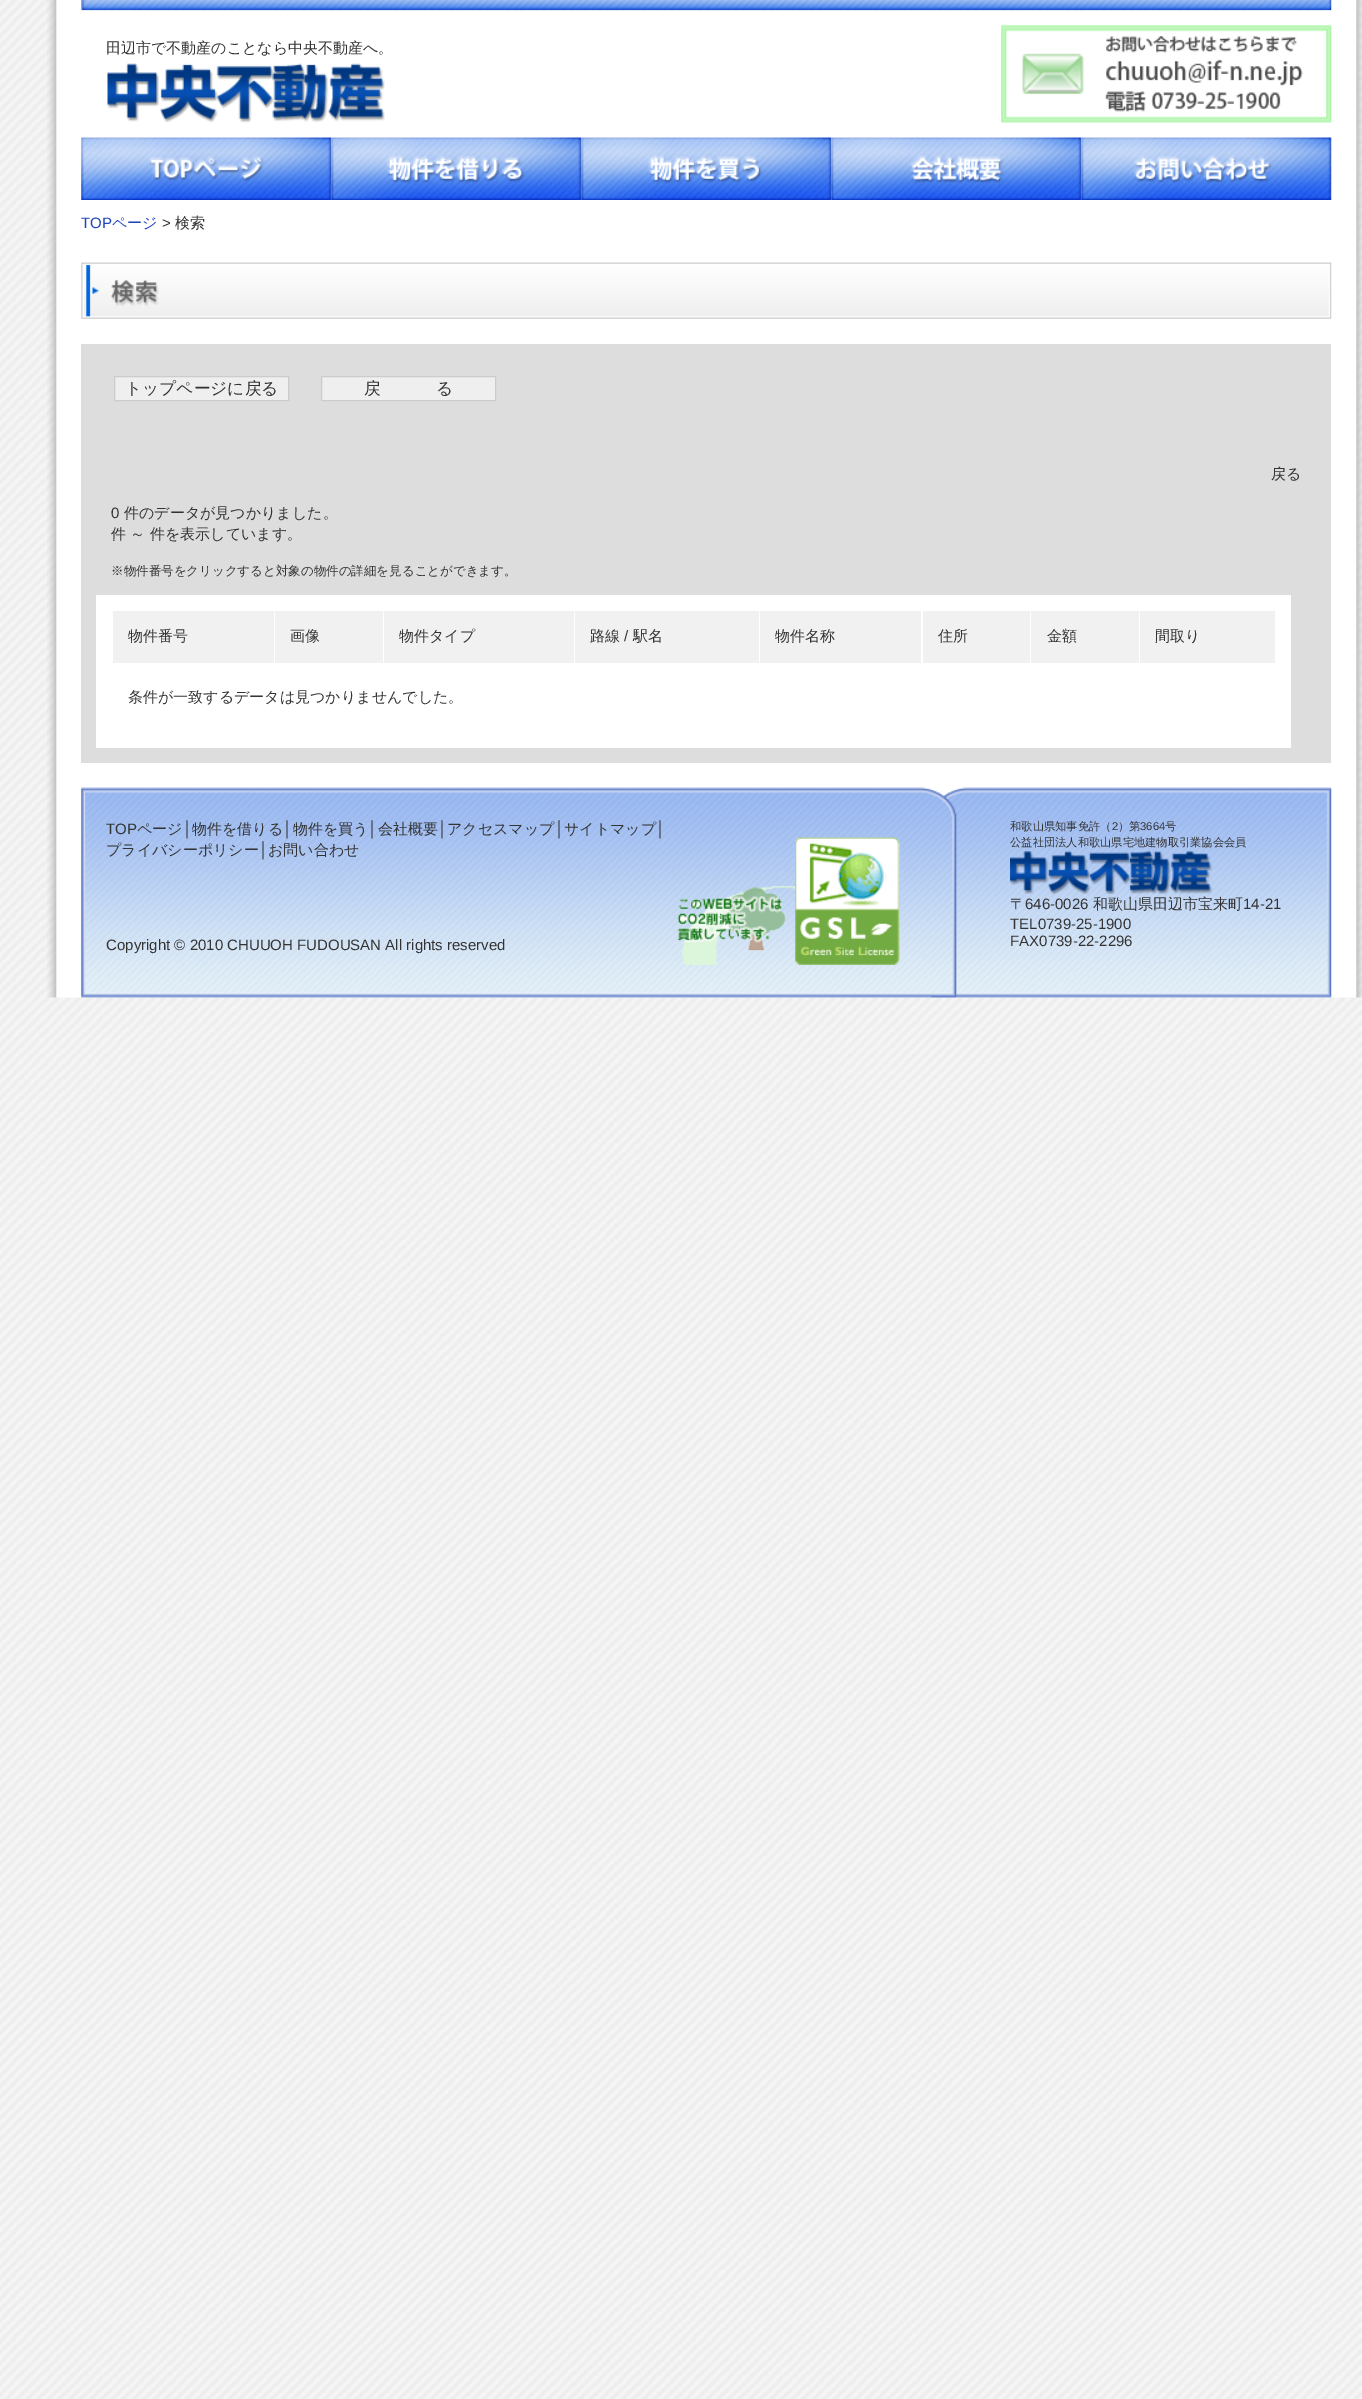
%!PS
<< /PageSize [1362 2399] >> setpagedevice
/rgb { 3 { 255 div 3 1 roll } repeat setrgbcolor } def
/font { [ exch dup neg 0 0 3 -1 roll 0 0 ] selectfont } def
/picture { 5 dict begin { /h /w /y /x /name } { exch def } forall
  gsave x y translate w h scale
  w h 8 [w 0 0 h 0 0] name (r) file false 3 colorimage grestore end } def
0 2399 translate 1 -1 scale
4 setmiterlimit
255 255 255 rgb
0 0 1362 2399 rectfill
(img/1.rgb) 0 0 1362 2399 picture
(img/2.rgb) 47 0 1315 998 picture
(img/3.rgb) 81 0 1251 11 picture
(img/4.rgb) 107 63 278 60 picture
(img/5.rgb) 1001 25 331 98 picture
(img/6.rgb) 81 137 251 63 picture
(img/7.rgb) 331 137 251 63 picture
(img/8.rgb) 581 137 251 63 picture
(img/9.rgb) 831 137 251 63 picture
(img/10.rgb) 1081 137 251 63 picture
(img/11.rgb) 81 262 1251 57 picture
221 221 221 rgb
81 344 1250 419 rectfill
239 239 239 rgb
114.5 376.5 moveto 288.5 376.5 lineto 288.5 400.5 lineto 114.5 400.5 lineto closepath gsave fill grestore
204 204 204 rgb
stroke
239 239 239 rgb
321.5 376.5 moveto 495.5 376.5 lineto 495.5 400.5 lineto 321.5 400.5 lineto closepath gsave fill grestore
204 204 204 rgb
stroke
[
  [96 595 1195 153 255 255 255]
  [113 611 161 52 241 241 241]
  [275 611 108 52 241 241 241]
  [384 611 190 52 241 241 241]
  [575 611 184 52 241 241 241]
  [760 611 161 52 241 241 241]
  [923 611 107 52 241 241 241]
  [1031 611 108 52 241 241 241]
  [1140 611 135 52 241 241 241]
] { aload pop rgb rectfill } forall
(img/12.rgb) 81 787 1251 211 picture
(img/13.rgb) 677 886 118 79 picture
(img/14.rgb) 795 837 105 128 picture
(img/15.rgb) 1010 851 203 43 picture
/WenQuanYiZenHei-Medium 15 font
51 51 51 rgb
106 53 moveto (田辺市で不動産のことなら中央不動産へ。) show
/LiberationSans-Regular 15 font
31 68 185 rgb
81 228 moveto (TOP) show
/WenQuanYiZenHei-Medium 15 font
112 228 moveto (ページ) show
/LiberationSans-Regular 15 font
51 51 51 rgb
162 228 moveto (>) show
/WenQuanYiZenHei-Medium 15 font
175 228 moveto (検索) show
/WenQuanYiZenHei-Medium 16.75 font
125 394 moveto (トップページに戻る) show
364 394 moveto -0.4 0 32 (戻            る) widthshow
/WenQuanYiZenHei-Medium 15 font
1271 479 moveto (戻る) show
/LiberationSans-Regular 15 font
111 518 moveto (0) show
/WenQuanYiZenHei-Medium 15 font
[
  [(件のデータが見つかりました。) 124 518]
  [(件 ～) 111 539]
  [(件を表示しています。) 150 539]
] { aload pop moveto show } forall
/WenQuanYiZenHei-Medium 12.5 font
111 575 moveto (※物件番号をクリックすると対象の物件の詳細を見ることができます。) show
/WenQuanYiZenHei-Medium 15 font
[
  [(物件番号) 128 641]
  [(画像) 290 641]
  [(物件タイプ) 399 641]
  [(路線) 590 641]
] { aload pop moveto show } forall
/LiberationSans-Regular 15 font
624 641 moveto (/) show
/WenQuanYiZenHei-Medium 15 font
[
  [(駅名) 633 641]
  [(物件名称) 775 641]
  [(住所) 938 641]
  [(金額) 1047 641]
  [(間取り) 1155 641]
  [(条件が一致するデータは見つかりませんでした。) 128 702]
] { aload pop moveto show } forall
/LiberationSans-Regular 15 font
106 834 moveto (TOP) show
/WenQuanYiZenHei-Medium 15 font
137 834 moveto (ページ) show
/LiberationSans-Regular 15 font
183 834 moveto (│) show
/WenQuanYiZenHei-Medium 15 font
192 834 moveto (物件を借りる) show
/LiberationSans-Regular 15 font
283 834 moveto (│) show
/WenQuanYiZenHei-Medium 15 font
293 834 moveto (物件を買う) show
/LiberationSans-Regular 15 font
368 834 moveto (│) show
/WenQuanYiZenHei-Medium 15 font
378 834 moveto (会社概要) show
/LiberationSans-Regular 15 font
438 834 moveto (│) show
/WenQuanYiZenHei-Medium 15 font
447 834 moveto (アクセスマップ) show
/LiberationSans-Regular 15 font
555 834 moveto (│) show
/WenQuanYiZenHei-Medium 15 font
564 834 moveto (サイトマップ) show
/LiberationSans-Regular 15 font
656 834 moveto (│) show
/WenQuanYiZenHei-Medium 15 font
106 855 moveto (プライバシーポリシー) show
/LiberationSans-Regular 15 font
259 855 moveto (│) show
/WenQuanYiZenHei-Medium 15 font
268 855 moveto (お問い合わせ) show
/LiberationSans-Regular 15 font
106 950 moveto (Copyright © 2010 CHUUOH FUDOUSAN All rights reserved) show
/WenQuanYiZenHei-Medium 11.25 font
1010 830 moveto (和歌山県知事免許（) show
/LiberationSans-Regular 11.25 font
1112 830 moveto (2) show
/WenQuanYiZenHei-Medium 11.25 font
1118 830 moveto (）第) show
/LiberationSans-Regular 11.25 font
1140 830 moveto (3664) show
/WenQuanYiZenHei-Medium 11.25 font
1165 830 moveto (号) show
1010 846 moveto (公益社団法人和歌山県宅地建物取引業協会会員) show
/WenQuanYiZenHei-Medium 15 font
1010 909 moveto (〒) show
/LiberationSans-Regular 15 font
1025 909 moveto (646-0026) show
/WenQuanYiZenHei-Medium 15 font
1093 909 moveto (和歌山県田辺市宝来町) show
/LiberationSans-Regular 15 font
[
  [(14-21) 1243 909]
  [(TEL0739-25-1900) 1010 929]
  [(FAX0739-22-2296) 1010 946]
] { aload pop moveto show } forall
showpage
